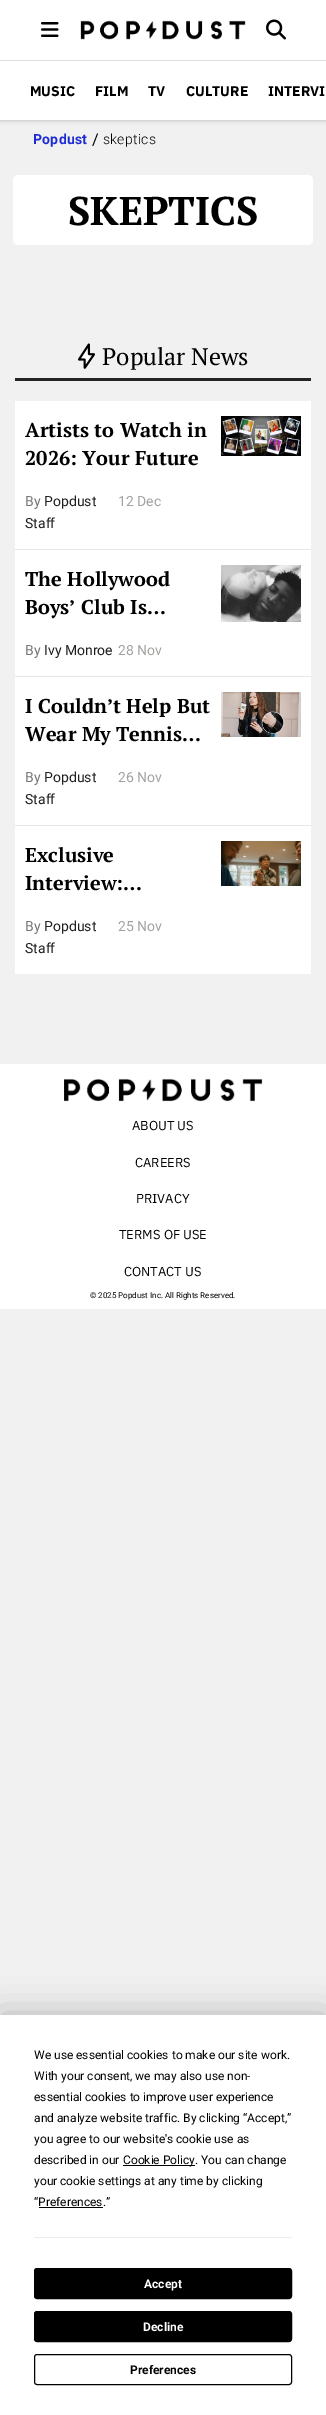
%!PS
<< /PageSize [326 2415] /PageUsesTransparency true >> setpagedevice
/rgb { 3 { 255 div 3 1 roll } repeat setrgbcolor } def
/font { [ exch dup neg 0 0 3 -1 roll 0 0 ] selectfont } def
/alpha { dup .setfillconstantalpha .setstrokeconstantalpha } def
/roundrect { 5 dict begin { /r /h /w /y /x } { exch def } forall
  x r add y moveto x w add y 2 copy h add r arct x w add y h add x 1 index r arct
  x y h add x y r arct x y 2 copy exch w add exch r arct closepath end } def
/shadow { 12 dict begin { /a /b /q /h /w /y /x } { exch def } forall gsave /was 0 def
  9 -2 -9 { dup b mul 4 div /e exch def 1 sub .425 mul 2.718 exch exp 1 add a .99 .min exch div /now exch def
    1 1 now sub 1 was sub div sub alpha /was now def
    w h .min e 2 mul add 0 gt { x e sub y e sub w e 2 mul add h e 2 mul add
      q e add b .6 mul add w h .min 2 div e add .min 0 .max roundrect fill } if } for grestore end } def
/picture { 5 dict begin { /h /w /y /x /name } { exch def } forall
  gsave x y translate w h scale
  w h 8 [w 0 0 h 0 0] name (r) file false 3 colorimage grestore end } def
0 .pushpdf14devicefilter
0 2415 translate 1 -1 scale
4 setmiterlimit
241 241 241 rgb
0 0 326 2415 rectfill
0 0 0 rgb
0 0 326 120 0 2.5 0.25 shadow
255 255 255 rgb
0 0 326 120 rectfill
(img/1.rgb) 41 22 18 15 picture
(img/2.rgb) 80 20 166 20 picture
(img/3.rgb) 266 19 20 21 picture
221 221 221 rgb
0 60 326 1 rectfill
255 255 255 rgb
13 175 300 70 5 roundrect fill
36 36 36 rgb
15 378 296 3 rectfill
(img/4.rgb) 78 343 17 26 picture
255 255 255 rgb
15 401 296 573 rectfill
230 230 230 rgb
15 549 296 1 rectfill
(img/5.rgb) 221 416 80 40 picture
15 676 296 1 rectfill
(img/6.rgb) 221 565 80 57 picture
15 825 296 1 rectfill
(img/7.rgb) 221 692 80 45 picture
(img/8.rgb) 221 841 80 45 picture
255 255 255 rgb
0 1064 326 245 rectfill
(img/9.rgb) 64 1078 199 24 picture
0 0 0 rgb
0 2015 326 400 0 17.5 0.25 shadow
[
  [0 2015 326 400 255 255 255]
  [123 2165 72 1 0 0 0]
  [39 2207 64 1 0 0 0]
  [34 2237 258 1 237 237 239]
] { aload pop rgb rectfill } forall
0 0 0 rgb
34.5 2268.5 257 30 2.5 roundrect gsave fill grestore
stroke
34.5 2311.5 257 30 2.5 roundrect gsave fill grestore
stroke
34.5 2354.5 257 30 2.5 roundrect stroke
/IBMPlexSans-Bold 14 font
[
  [(MUSIC) 30 96]
  [(FILM) 95 96]
  [(TV) 148 96]
  [(CULTURE) 186 96]
  [(INTERVI) 268 96]
] { aload pop moveto show } forall
/Roboto-Bold 14 font
30 43 210 rgb
33 144 moveto 0.25 0 (Popdust) ashow
/Roboto-Regular 16 font
0 0 0 rgb
92 145 moveto (/) show
/Roboto-Light 14 font
103 144 moveto 0.25 0 (skeptics) ashow
/PTSerif-Bold 40 font
68 225 moveto (SKEPTICS) show
/PTSerif-Regular 24 font
102 365 moveto (Popular News) show
/PTSerif-Bold 20 font
25 437 moveto (Artists to Watch in) show
25 465 moveto (2026: Your Future) show
/Roboto-Regular 14 font
116 116 116 rgb
25 506 moveto (By) show
31 31 31 rgb
44 506 moveto (Popdust) show
25 528 moveto (Staff) show
164 162 160 rgb
118 506 moveto (12 Dec) show
/PTSerif-Bold 20 font
0 0 0 rgb
25 586 moveto (The Hollywood) show
25 614 moveto (Boys’ Club Is…) show
/Roboto-Regular 14 font
116 116 116 rgb
25 655 moveto (By) show
31 31 31 rgb
44 655 moveto (Ivy Monroe) show
164 162 160 rgb
118 655 moveto (28 Nov) show
/PTSerif-Bold 20 font
0 0 0 rgb
25 713 moveto (I Couldn’t Help But) show
25 741 moveto (Wear My Tennis…) show
/Roboto-Regular 14 font
116 116 116 rgb
25 782 moveto (By) show
31 31 31 rgb
44 782 moveto (Popdust) show
25 804 moveto (Staff) show
164 162 160 rgb
118 782 moveto (26 Nov) show
/PTSerif-Bold 20 font
0 0 0 rgb
25 862 moveto (Exclusive) show
25 890 moveto (Interview:…) show
/Roboto-Regular 14 font
116 116 116 rgb
25 931 moveto (By) show
31 31 31 rgb
44 931 moveto (Popdust) show
25 953 moveto (Staff) show
164 162 160 rgb
118 931 moveto (25 Nov) show
/IBMPlexSans-Regular 13 font
0 0 0 rgb
[
  [(ABOUT US) 132 1130]
  [(CAREERS) 135 1167]
  [(PRIVACY) 136 1203]
  [(TERMS OF USE) 119 1239]
  [(CONTACT US) 124 1276]
] { aload pop moveto show } forall
/Roboto-Regular 8 font
90 1298 moveto (© 2025 Popdust Inc. All Rights Reserved.) show
/Roboto-Regular 12 font
[
  [(We use essential cookies to make our site work.) 34 2059]
  [(With your consent, we may also use non-) 34 2080]
  [(essential cookies to improve user experience) 34 2101]
  [(and analyze website traffic. By clicking “Accept,”) 34 2122]
  [(you agree to our website's cookie use as) 34 2143]
  [(described in our) 34 2164]
  [(Cookie Policy. You can change) 123 2164]
  [(your cookie settings at any time by clicking) 34 2185]
  [(“Preferences.”) 34 2206]
] { aload pop moveto show } forall
/Roboto-Bold 12 font
255 255 255 rgb
144 2288 moveto (Accept) show
143 2331 moveto (Decline) show
0 0 0 rgb
130 2374 moveto (Preferences) show
.poppdf14devicefilter showpage
